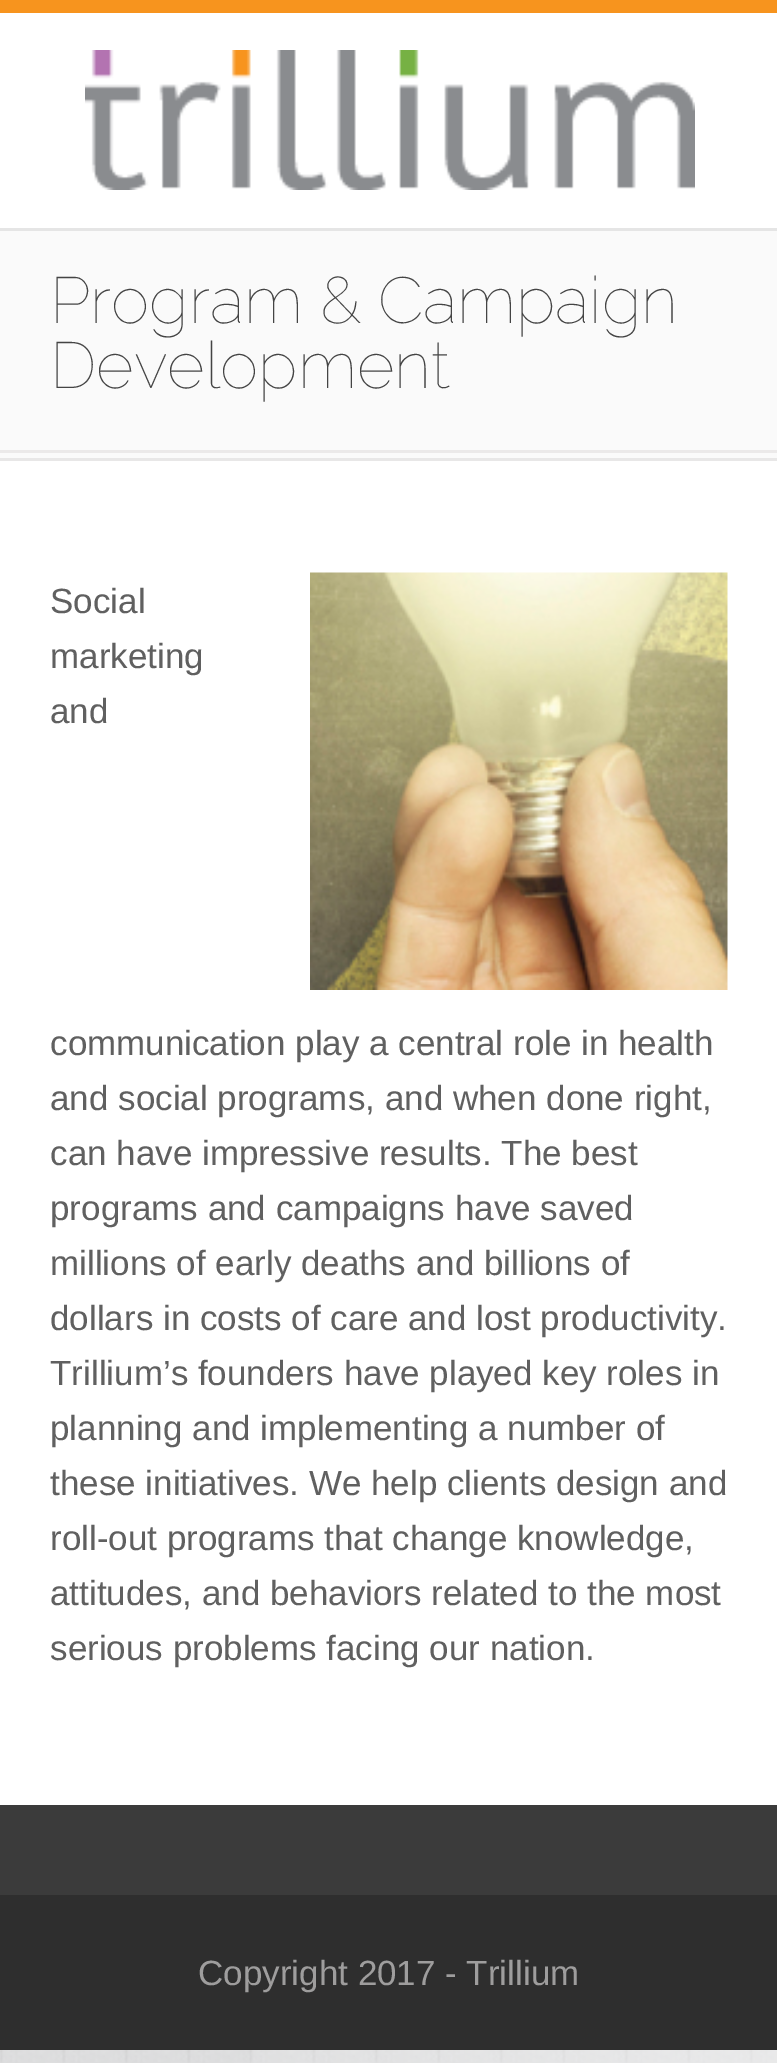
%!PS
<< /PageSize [777 2063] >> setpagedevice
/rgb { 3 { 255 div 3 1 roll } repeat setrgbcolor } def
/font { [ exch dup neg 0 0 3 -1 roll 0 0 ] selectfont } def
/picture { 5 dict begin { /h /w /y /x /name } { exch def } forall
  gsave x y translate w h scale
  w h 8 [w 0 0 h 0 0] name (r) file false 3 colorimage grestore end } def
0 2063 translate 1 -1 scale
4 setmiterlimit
255 255 255 rgb
0 0 777 2063 rectfill
(img/1.rgb) 0 2050 777 13 picture
(img/2.rgb) 251 2050 526 13 picture
247 148 30 rgb
0 0 777 13 rectfill
229 229 229 rgb
0 228 777 3 rectfill
(img/3.rgb) 85 50 610 140 picture
[
  [0 231 777 227 250 250 250]
  [0 458 777 3 232 231 231]
  [0 450 777 3 235 233 233]
] { aload pop rgb rectfill } forall
(img/4.rgb) 310 572 418 418 picture
46 46 46 rgb
0 1895 777 155 rectfill
59 59 59 rgb
0 1805 777 90 rectfill
/Raleway-Thin 65 font
68 68 68 rgb
50 323 moveto (Program & Campaign) show
50 388 moveto (Development) show
/LiberationSans-Regular 35 font
96 96 96 rgb
[
  [(Social) 50 613]
  [(marketing) 50 668]
  [(and) 50 723]
  [(communication play a central role in health) 50 1055]
  [(and social programs, and when done right,) 50 1110]
  [(can have impressive results. The best) 50 1165]
  [(programs and campaigns have saved) 50 1220]
  [(millions of early deaths and billions of) 50 1275]
  [(dollars in costs of care and lost productivity.) 50 1330]
  [(Trillium’s founders have played key roles in) 50 1385]
  [(planning and implementing a number of) 50 1440]
  [(these initiatives. We help clients design and) 50 1495]
  [(roll-out programs that change knowledge,) 50 1550]
  [(attitudes, and behaviors related to the most) 50 1605]
  [(serious problems facing our nation.) 50 1660]
] { aload pop moveto show } forall
158 157 157 rgb
198 1985 moveto (Copyright 2017 - Trillium) show
showpage
